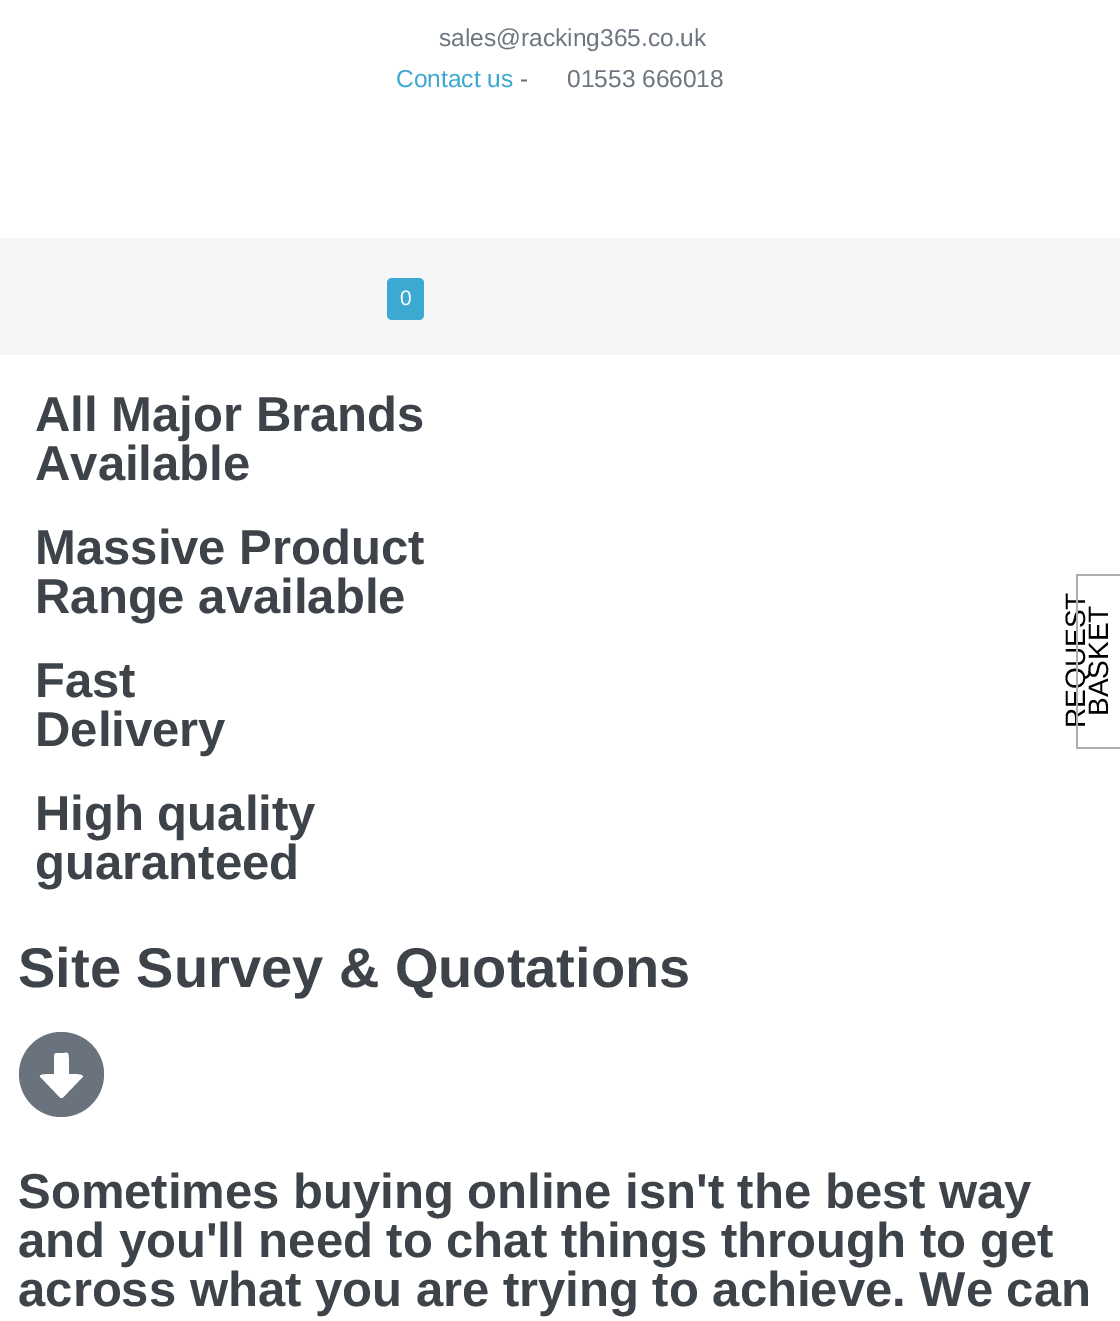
%!PS
<< /PageSize [1120 1321] >> setpagedevice
/rgb { 3 { 255 div 3 1 roll } repeat setrgbcolor } def
/font { [ exch dup neg 0 0 3 -1 roll 0 0 ] selectfont } def
/roundrect { 5 dict begin { /r /h /w /y /x } { exch def } forall
  x r add y moveto x w add y 2 copy h add r arct x w add y h add x 1 index r arct
  x y h add x y r arct x y 2 copy exch w add exch r arct closepath end } def
0 1321 translate 1 -1 scale
4 setmiterlimit
255 255 255 rgb
0 0 1120 1321 rectfill
245 245 247 rgb
0 238 1120 117 rectfill
59 169 210 rgb
387 278 37 42 5 roundrect fill
105 114 125 rgb
104 1074 moveto 104 1098 85 1117 61 1117 curveto 38 1117 19 1098 19 1074 curveto 19 1051 38 1032 61 1032 curveto 85 1032 104 1051 104 1074 curveto closepath 54 1055 moveto 54 1074 lineto 52 1074 37 1073 40 1077 curveto 60 1098 lineto 61 1098 lineto 63 1098 lineto 83 1077 lineto 85 1073 71 1074 69 1074 curveto 69 1058 lineto 69 1050 67 1053 59 1053 curveto 58 1053 54 1052 54 1055 curveto closepath fill
174 174 174 rgb
1076 574 44 2 rectfill
1076 747 44 2 rectfill
/LiberationSans-Regular 24.5 font
109 118 128 rgb
439 46 moveto (sales@racking365.co.uk) show
59 169 210 rgb
396 87 moveto (Contact us) show
109 118 128 rgb
520 87 moveto (-) show
567 87 moveto (01553 666018) show
/LiberationSans-Regular 21 font
255 255 255 rgb
400 305 moveto (0) show
/LiberationSans-Bold 49 font
62 67 73 rgb
[
  [(All Major Brands) 35 431]
  [(Available) 35 480]
  [(Massive Product) 35 564]
  [(Range available) 35 613]
  [(Fast) 35 697]
  [(Delivery) 35 746]
  [(High quality) 35 830]
  [(guaranteed) 35 879]
] { aload pop moveto show } forall
/LiberationSans-Bold 56 font
18 987 moveto (Site Survey & Quotations) show
/LiberationSans-Bold 49 font
[
  [(Sometimes buying online isn't the best way) 18 1208]
  [(and you'll need to chat things through to get) 18 1257]
  [(across what you are trying to achieve. We can) 18 1306]
] { aload pop moveto show } forall
/LiberationSans-Regular 28 font
0 0 0 rgb
gsave 1085 728 translate -90 rotate 0 0 moveto (REQUEST) show grestore
174 174 174 rgb
1076 574 2 175 rectfill
0 0 0 rgb
gsave 1108 716 translate -90 rotate 0 0 moveto (BASKET) show grestore
showpage
